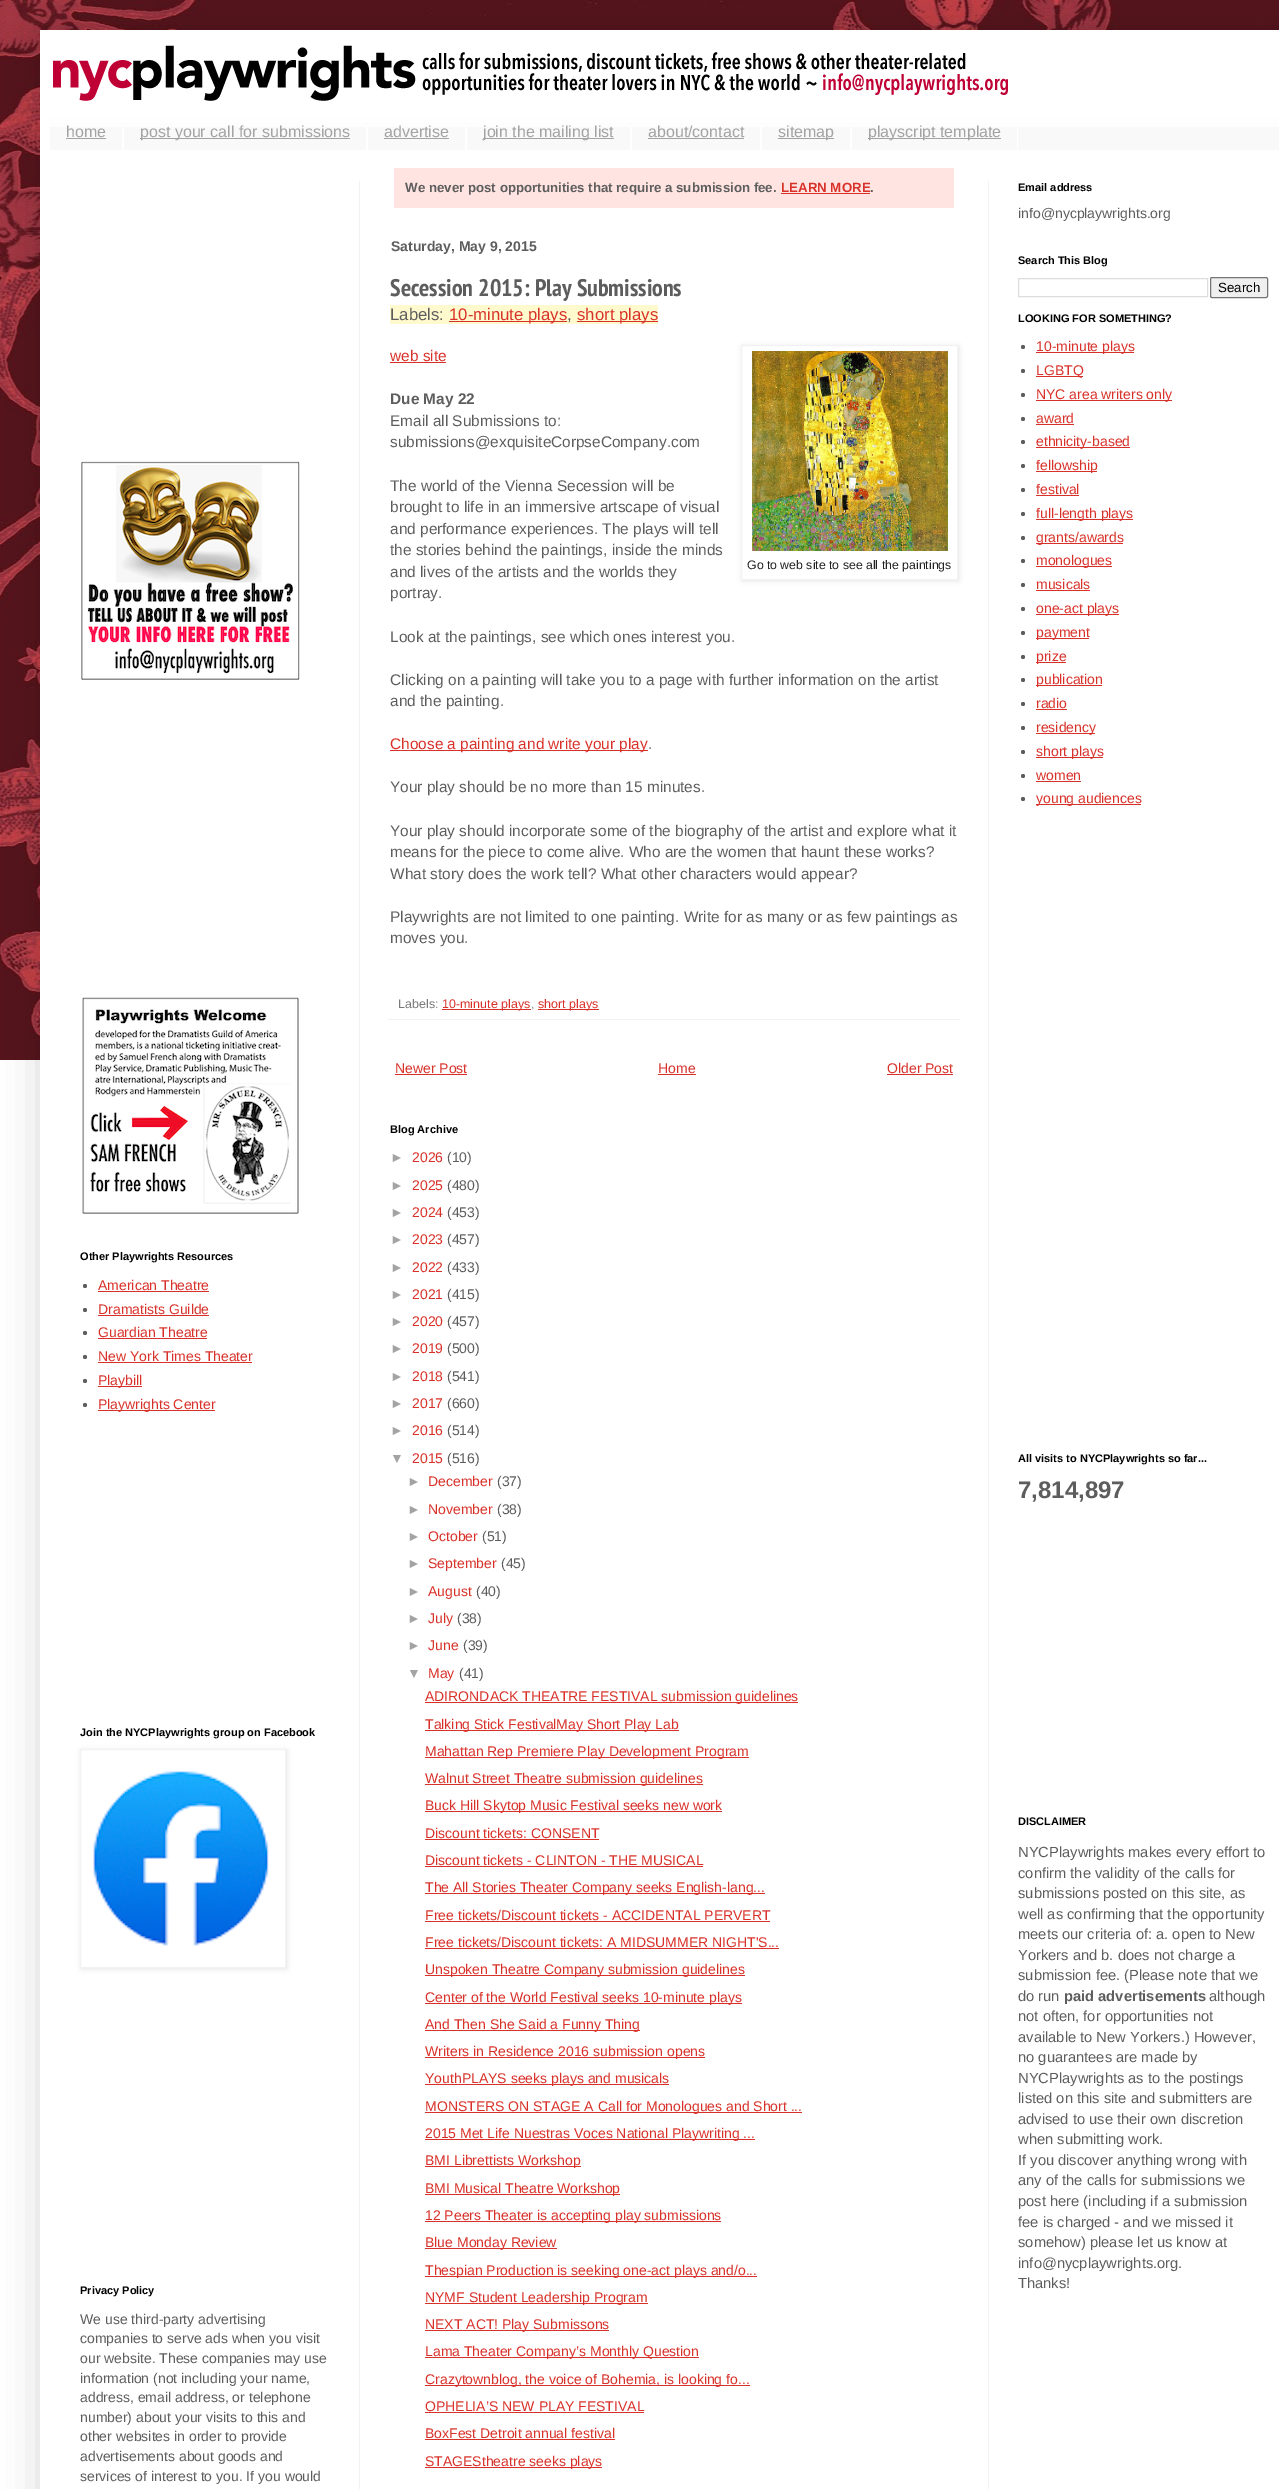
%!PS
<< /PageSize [1279 2489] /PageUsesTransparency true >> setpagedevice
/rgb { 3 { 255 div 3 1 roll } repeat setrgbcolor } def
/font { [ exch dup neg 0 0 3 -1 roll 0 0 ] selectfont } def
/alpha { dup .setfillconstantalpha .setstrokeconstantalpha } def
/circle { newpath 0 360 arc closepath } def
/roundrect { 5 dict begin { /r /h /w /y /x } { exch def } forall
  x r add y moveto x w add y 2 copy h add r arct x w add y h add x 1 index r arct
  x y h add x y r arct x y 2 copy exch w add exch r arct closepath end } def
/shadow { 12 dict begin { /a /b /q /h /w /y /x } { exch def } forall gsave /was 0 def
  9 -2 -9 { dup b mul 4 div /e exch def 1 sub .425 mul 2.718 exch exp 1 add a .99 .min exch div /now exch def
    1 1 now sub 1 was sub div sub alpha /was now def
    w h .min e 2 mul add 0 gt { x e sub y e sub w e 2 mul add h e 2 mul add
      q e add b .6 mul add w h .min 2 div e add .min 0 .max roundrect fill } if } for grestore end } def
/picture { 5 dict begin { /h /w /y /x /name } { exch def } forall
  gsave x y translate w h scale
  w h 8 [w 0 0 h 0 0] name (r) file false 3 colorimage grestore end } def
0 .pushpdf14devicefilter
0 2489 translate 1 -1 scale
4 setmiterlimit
255 255 255 rgb
0 0 1279 2489 rectfill
(img/1.rgb) 0 0 1279 1060 picture
0 0 0 rgb
40 30 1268 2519 0 20 0.15 shadow
255 255 255 rgb
40 30 1239 2459 rectfill
(img/2.rgb) 53 45 955 56 picture
249 249 249 rgb
50 114 1229 36 rectfill
(img/3.rgb) 50 113 1229 14 picture
[
  [122 127 2 23 255 255 255]
  [66 138 40 1 163 163 163]
  [366 127 2 23 255 255 255]
  [140 138 210 1 163 163 163]
  [465 127 2 23 255 255 255]
  [384 138 65 1 163 163 163]
  [630 127 2 23 255 255 255]
  [483 138 131 1 163 163 163]
  [760 127 2 23 255 255 255]
  [648 138 96 1 163 163 163]
  [850 127 2 23 255 255 255]
  [778 138 56 1 163 163 163]
  [1017 127 1 23 255 255 255]
  [868 138 133 1 163 163 163]
  [359 181 1 2308 242 242 242]
  [988 181 1 2308 242 242 242]
] { aload pop rgb rectfill } forall
(img/4.rgb) 81 461 219 219 picture
(img/5.rgb) 82 997 217 217 picture
93 93 93 rgb
85 1286 2 circle fill
216 49 41 rgb
98 1291 111 1 rectfill
93 93 93 rgb
85 1310 2 circle fill
216 49 41 rgb
98 1315 111 1 rectfill
93 93 93 rgb
85 1333 2 circle fill
216 49 41 rgb
98 1338 109 1 rectfill
93 93 93 rgb
85 1357 2 circle fill
216 49 41 rgb
98 1362 154 1 rectfill
93 93 93 rgb
85 1381 2 circle fill
216 49 41 rgb
98 1386 44 1 rectfill
93 93 93 rgb
85 1405 2 circle fill
216 49 41 rgb
98 1410 117 1 rectfill
gsave
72 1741 moveto 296 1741 lineto 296 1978 lineto 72 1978 lineto closepath 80 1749 moveto 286 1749 lineto 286 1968 lineto 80 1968 lineto closepath eoclip newpath
0 0 0 rgb
81 1750 206 219 0 2.5 0.1 shadow
grestore
242 242 242 rgb
80.5 1749.5 205 218 rectstroke
(img/6.rgb) 93 1771 176 175 picture
[
  [394 168 560 40 255 228 225]
  [781 193 89 1 216 49 41]
  [390 305 268 19 255 250 205]
  [449 321 118 1 216 49 41]
  [577 321 81 1 216 49 41]
  [390 362 56 1 216 49 41]
  [390 750 258 1 216 49 41]
] { aload pop rgb rectfill } forall
gsave
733 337 moveto 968 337 lineto 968 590 lineto 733 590 lineto closepath 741 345 moveto 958 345 lineto 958 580 lineto 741 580 lineto closepath eoclip newpath
0 0 0 rgb
742 346 217 235 0 2.5 0.1 shadow
grestore
242 242 242 rgb
741.5 345.5 216 234 rectstroke
(img/7.rgb) 752 351 196 200 picture
[
  [388 1019 572 1 242 242 242]
  [442 1009 89 1 216 49 41]
  [538 1009 61 1 216 49 41]
  [395 1074 72 1 216 49 41]
  [658 1074 38 1 216 49 41]
  [887 1074 66 1 216 49 41]
  [425 1702 373 1 216 49 41]
  [425 1730 254 1 216 49 41]
  [425 1757 324 1 216 49 41]
  [425 1784 278 1 216 49 41]
  [425 1811 297 1 216 49 41]
  [425 1839 174 1 216 49 41]
  [425 1866 278 1 216 49 41]
  [425 1893 340 1 216 49 41]
  [425 1921 345 1 216 49 41]
  [425 1948 354 1 216 49 41]
  [425 1975 320 1 216 49 41]
  [425 2003 317 1 216 49 41]
  [425 2030 215 1 216 49 41]
  [425 2057 280 1 216 49 41]
  [425 2084 244 1 216 49 41]
  [425 2112 377 1 216 49 41]
  [425 2139 330 1 216 49 41]
  [425 2166 156 1 216 49 41]
  [425 2194 195 1 216 49 41]
  [425 2221 296 1 216 49 41]
  [425 2248 132 1 216 49 41]
  [425 2276 332 1 216 49 41]
  [425 2303 223 1 216 49 41]
  [425 2330 184 1 216 49 41]
  [425 2357 274 1 216 49 41]
  [425 2385 325 1 216 49 41]
  [425 2412 219 1 216 49 41]
  [425 2439 190 1 216 49 41]
  [425 2467 177 1 216 49 41]
] { aload pop rgb rectfill } forall
221 221 221 rgb
1018.5 278.5 189 18 rectstroke
239 239 239 rgb
1210.5 277.5 57 20 1.5 roundrect gsave fill grestore
118 118 118 rgb
stroke
93 93 93 rgb
1023 347 2 circle fill
216 49 41 rgb
1036 352 98 1 rectfill
93 93 93 rgb
1023 371 2 circle fill
216 49 41 rgb
1036 376 47 1 rectfill
93 93 93 rgb
1023 395 2 circle fill
216 49 41 rgb
1036 400 136 1 rectfill
93 93 93 rgb
1023 419 2 circle fill
216 49 41 rgb
1036 424 38 1 rectfill
93 93 93 rgb
1023 442 2 circle fill
216 49 41 rgb
1036 447 94 1 rectfill
93 93 93 rgb
1023 466 2 circle fill
216 49 41 rgb
1036 471 61 1 rectfill
93 93 93 rgb
1023 490 2 circle fill
216 49 41 rgb
1036 495 43 1 rectfill
93 93 93 rgb
1023 514 2 circle fill
216 49 41 rgb
1036 519 97 1 rectfill
93 93 93 rgb
1023 538 2 circle fill
216 49 41 rgb
1036 543 87 1 rectfill
93 93 93 rgb
1023 561 2 circle fill
216 49 41 rgb
1036 566 76 1 rectfill
93 93 93 rgb
1023 585 2 circle fill
216 49 41 rgb
1036 590 54 1 rectfill
93 93 93 rgb
1023 609 2 circle fill
216 49 41 rgb
1036 614 83 1 rectfill
93 93 93 rgb
1023 633 2 circle fill
216 49 41 rgb
1036 638 53 1 rectfill
93 93 93 rgb
1023 657 2 circle fill
216 49 41 rgb
1036 662 30 1 rectfill
93 93 93 rgb
1023 680 2 circle fill
216 49 41 rgb
1036 685 66 1 rectfill
93 93 93 rgb
1023 704 2 circle fill
216 49 41 rgb
1036 709 31 1 rectfill
93 93 93 rgb
1023 728 2 circle fill
216 49 41 rgb
1036 733 59 1 rectfill
93 93 93 rgb
1023 752 2 circle fill
216 49 41 rgb
1036 757 67 1 rectfill
93 93 93 rgb
1023 776 2 circle fill
216 49 41 rgb
1036 781 45 1 rectfill
93 93 93 rgb
1023 799 2 circle fill
216 49 41 rgb
1036 804 105 1 rectfill
/LiberationSans-Regular 16 font
163 163 163 rgb
[
  [(home) 66 137]
  [(post your call for submissions) 140 137]
  [(advertise) 384 137]
  [(join the mailing list) 483 137]
  [(about/contact) 648 137]
  [(sitemap) 778 137]
  [(playscript template) 868 137]
] { aload pop moveto show } forall
/LiberationSans-Bold 11 font
0 0 0 rgb
80 1260 moveto (Other Playwrights Resources) show
/LiberationSans-Regular 14 font
216 49 41 rgb
[
  [(American Theatre) 98 1290]
  [(Dramatists Guilde) 98 1314]
  [(Guardian Theatre) 98 1337]
  [(New York Times Theater) 98 1361]
  [(Playbill) 98 1385]
  [(Playwrights Center) 98 1409]
] { aload pop moveto show } forall
/LiberationSans-Bold 11 font
0 0 0 rgb
80 1736 moveto (Join the NYCPlaywrights group on Facebook) show
80 2294 moveto (Privacy Policy) show
/LiberationSans-Regular 14 font
93 93 93 rgb
[
  [(We use third-party advertising) 80 2324]
  [(companies to serve ads when you visit) 80 2343]
  [(our website. These companies may use) 80 2363]
  [(information \(not including your name,) 80 2383]
  [(address, email address, or telephone) 80 2402]
  [(number\) about your visits to this and) 80 2422]
  [(other websites in order to provide) 80 2441]
  [(advertisements about goods and) 80 2461]
  [(services of interest to you. If you would) 80 2481]
] { aload pop moveto show } forall
/LiberationSans-Bold 13.3 font
405 192 moveto (We never post opportunities that require a submission fee.) show
216 49 41 rgb
781 192 moveto (LEARN MORE) show
93 93 93 rgb
870 192 moveto (.) show
/LiberationSans-Bold 14 font
391 251 moveto (Saturday, May 9, 2015) show
/PTSansNarrow-Bold 24 font
390 296 moveto (Secession 2015: Play Submissions) show
/LiberationSans-Regular 16.75 font
390 320 moveto (Labels:) show
216 49 41 rgb
449 320 moveto (10-minute plays) show
93 93 93 rgb
567 320 moveto (,) show
216 49 41 rgb
577 320 moveto (short plays) show
/LiberationSans-Regular 15.4 font
390 361 moveto (web site) show
/LiberationSans-Bold 15.4 font
93 93 93 rgb
390 404 moveto (Due May 22) show
/LiberationSans-Regular 15.4 font
[
  [(Email all Submissions to:) 390 426]
  [(submissions@exquisiteCorpseCompany.com) 390 447]
  [(The world of the Vienna Secession will be) 390 491]
  [(brought to life in an immersive artscape of visual) 390 512]
  [(and performance experiences. The plays will tell) 390 534]
  [(the stories behind the paintings, inside the minds) 390 555]
  [(and lives of the artists and the worlds they) 390 577]
  [(portray.) 390 598]
  [(Look at the paintings, see which ones interest you.) 390 642]
  [(Clicking on a painting will take you to a page with further information on the artist) 390 685]
  [(and the painting.) 390 706]
] { aload pop moveto show } forall
216 49 41 rgb
390 749 moveto (Choose a painting and write your play) show
93 93 93 rgb
[
  [(.) 648 749]
  [(Your play should be no more than 15 minutes.) 390 792]
  [(Your play should incorporate some of the biography of the artist and explore what it) 390 836]
  [(means for the piece to come alive. Who are the women that haunt these works?) 390 857]
  [(What story does the work tell? What other characters would appear?) 390 879]
  [(Playwrights are not limited to one painting. Write for as many or as few paintings as) 390 922]
  [(moves you.) 390 943]
] { aload pop moveto show } forall
/LiberationSans-Regular 12.3 font
34 34 34 rgb
747 569 moveto (Go to web site to see all the paintings) show
/LiberationSans-Regular 12.5 font
122 122 122 rgb
398 1008 moveto (Labels:) show
216 49 41 rgb
442 1008 moveto (10-minute plays) show
122 122 122 rgb
531 1008 moveto (,) show
216 49 41 rgb
538 1008 moveto (short plays) show
/LiberationSans-Regular 14 font
[
  [(Newer Post) 395 1073]
  [(Home) 658 1073]
  [(Older Post) 887 1073]
] { aload pop moveto show } forall
/LiberationSans-Bold 11 font
0 0 0 rgb
390 1133 moveto (Blog Archive) show
/LiberationSans-Regular 14 font
163 163 163 rgb
390 1162 moveto (►) show
216 49 41 rgb
412 1162 moveto (2026) show
93 93 93 rgb
447 1162 moveto (\(10\)) show
163 163 163 rgb
390 1190 moveto (►) show
216 49 41 rgb
412 1190 moveto (2025) show
93 93 93 rgb
447 1190 moveto (\(480\)) show
163 163 163 rgb
390 1217 moveto (►) show
216 49 41 rgb
412 1217 moveto (2024) show
93 93 93 rgb
447 1217 moveto (\(453\)) show
163 163 163 rgb
390 1244 moveto (►) show
216 49 41 rgb
412 1244 moveto (2023) show
93 93 93 rgb
447 1244 moveto (\(457\)) show
163 163 163 rgb
390 1272 moveto (►) show
216 49 41 rgb
412 1272 moveto (2022) show
93 93 93 rgb
447 1272 moveto (\(433\)) show
163 163 163 rgb
390 1299 moveto (►) show
216 49 41 rgb
412 1299 moveto (2021) show
93 93 93 rgb
447 1299 moveto (\(415\)) show
163 163 163 rgb
390 1326 moveto (►) show
216 49 41 rgb
412 1326 moveto (2020) show
93 93 93 rgb
447 1326 moveto (\(457\)) show
163 163 163 rgb
390 1353 moveto (►) show
216 49 41 rgb
412 1353 moveto (2019) show
93 93 93 rgb
447 1353 moveto (\(500\)) show
163 163 163 rgb
390 1381 moveto (►) show
216 49 41 rgb
412 1381 moveto (2018) show
93 93 93 rgb
447 1381 moveto (\(541\)) show
163 163 163 rgb
390 1408 moveto (►) show
216 49 41 rgb
412 1408 moveto (2017) show
93 93 93 rgb
447 1408 moveto (\(660\)) show
163 163 163 rgb
390 1435 moveto (►) show
216 49 41 rgb
412 1435 moveto (2016) show
93 93 93 rgb
447 1435 moveto (\(514\)) show
163 163 163 rgb
390 1463 moveto (▼) show
216 49 41 rgb
412 1463 moveto (2015) show
93 93 93 rgb
447 1463 moveto (\(516\)) show
163 163 163 rgb
407 1486 moveto (►) show
216 49 41 rgb
428 1486 moveto (December) show
93 93 93 rgb
497 1486 moveto (\(37\)) show
163 163 163 rgb
407 1514 moveto (►) show
216 49 41 rgb
428 1514 moveto (November) show
93 93 93 rgb
497 1514 moveto (\(38\)) show
163 163 163 rgb
407 1541 moveto (►) show
216 49 41 rgb
428 1541 moveto (October) show
93 93 93 rgb
482 1541 moveto (\(51\)) show
163 163 163 rgb
407 1568 moveto (►) show
216 49 41 rgb
428 1568 moveto (September) show
93 93 93 rgb
501 1568 moveto (\(45\)) show
163 163 163 rgb
407 1596 moveto (►) show
216 49 41 rgb
428 1596 moveto (August) show
93 93 93 rgb
476 1596 moveto (\(40\)) show
163 163 163 rgb
407 1623 moveto (►) show
216 49 41 rgb
428 1623 moveto (July) show
93 93 93 rgb
457 1623 moveto (\(38\)) show
163 163 163 rgb
407 1650 moveto (►) show
216 49 41 rgb
428 1650 moveto (June) show
93 93 93 rgb
463 1650 moveto (\(39\)) show
163 163 163 rgb
407 1678 moveto (▼) show
216 49 41 rgb
428 1678 moveto (May) show
93 93 93 rgb
459 1678 moveto (\(41\)) show
216 49 41 rgb
[
  [(ADIRONDACK THEATRE FESTIVAL submission guidelines) 425 1701]
  [(Talking Stick FestivalMay Short Play Lab) 425 1729]
  [(Mahattan Rep Premiere Play Development Program) 425 1756]
  [(Walnut Street Theatre submission guidelines) 425 1783]
  [(Buck Hill Skytop Music Festival seeks new work) 425 1810]
  [(Discount tickets: CONSENT) 425 1838]
  [(Discount tickets - CLINTON - THE MUSICAL) 425 1865]
  [(The All Stories Theater Company seeks English-lang...) 425 1892]
  [(Free tickets/Discount tickets - ACCIDENTAL PERVERT) 425 1920]
  [(Free tickets/Discount tickets: A MIDSUMMER NIGHT'S...) 425 1947]
  [(Unspoken Theatre Company submission guidelines) 425 1974]
  [(Center of the World Festival seeks 10-minute plays) 425 2002]
  [(And Then She Said a Funny Thing) 425 2029]
  [(Writers in Residence 2016 submission opens) 425 2056]
  [(YouthPLAYS seeks plays and musicals) 425 2083]
  [(MONSTERS ON STAGE A Call for Monologues and Short ...) 425 2111]
  [(2015 Met Life Nuestras Voces National Playwriting ...) 425 2138]
  [(BMI Librettists Workshop) 425 2165]
  [(BMI Musical Theatre Workshop) 425 2193]
  [(12 Peers Theater is accepting play submissions) 425 2220]
  [(Blue Monday Review) 425 2247]
  [(Thespian Production is seeking one-act plays and/o...) 425 2275]
  [(NYMF Student Leadership Program) 425 2302]
  [(NEXT ACT! Play Submissons) 425 2329]
  [(Lama Theater Company’s Monthly Question) 425 2356]
  [(Crazytownblog, the voice of Bohemia, is looking fo...) 425 2384]
  [(OPHELIA’S NEW PLAY FESTIVAL) 425 2411]
  [(BoxFest Detroit annual festival) 425 2438]
  [(STAGEStheatre seeks plays) 425 2466]
] { aload pop moveto show } forall
/LiberationSans-Bold 11 font
0 0 0 rgb
1018 191 moveto (Email address) show
/LiberationSans-Regular 14 font
93 93 93 rgb
1018 218 moveto (info@nycplaywrights.org) show
/LiberationSans-Bold 11 font
0 0 0 rgb
1018 264 moveto (Search This Blog) show
/LiberationSans-Regular 13.3 font
1218 292 moveto (Search) show
/LiberationSans-Bold 11 font
1018 322 moveto (LOOKING FOR SOMETHING?) show
/LiberationSans-Regular 14 font
216 49 41 rgb
[
  [(10-minute plays) 1036 351]
  [(LGBTQ) 1036 375]
  [(NYC area writers only) 1036 399]
  [(award) 1036 423]
  [(ethnicity-based) 1036 446]
  [(fellowship) 1036 470]
  [(festival) 1036 494]
  [(full-length plays) 1036 518]
  [(grants/awards) 1036 542]
  [(monologues) 1036 565]
  [(musicals) 1036 589]
  [(one-act plays) 1036 613]
  [(payment) 1036 637]
  [(prize) 1036 661]
  [(publication) 1036 684]
  [(radio) 1036 708]
  [(residency) 1036 732]
  [(short plays) 1036 756]
  [(women) 1036 780]
  [(young audiences) 1036 803]
] { aload pop moveto show } forall
/LiberationSans-Bold 11 font
0 0 0 rgb
1018 1462 moveto (All visits to NYCPlaywrights so far...) show
/LiberationSans-Bold 24 font
93 93 93 rgb
1018 1498 moveto (7,814,897) show
/LiberationSans-Bold 11 font
0 0 0 rgb
1018 1825 moveto (DISCLAIMER) show
/LiberationSans-Regular 14.7 font
93 93 93 rgb
[
  [(NYCPlaywrights makes every effort to) 1018 1857]
  [(confirm the validity of the calls for) 1018 1878]
  [(submissions posted on this site, as) 1018 1898]
  [(well as confirming that the opportunity) 1018 1919]
  [(meets our criteria of: a. open to New) 1018 1939]
  [(Yorkers and b. does not charge a) 1018 1960]
  [(submission fee. \(Please note that we) 1018 1980]
  [(do run) 1018 2001]
] { aload pop moveto show } forall
/LiberationSans-Bold 14.7 font
1064 2001 moveto (paid advertisements) show
/LiberationSans-Regular 14.7 font
[
  [(although) 1209 2001]
  [(not often, for opportunities not) 1018 2021]
  [(available to New Yorkers.\) However,) 1018 2042]
  [(no guarantees are made by) 1018 2062]
  [(NYCPlaywrights as to the postings) 1018 2083]
  [(listed on this site and submitters are) 1018 2103]
  [(advised to use their own discretion) 1018 2124]
  [(when submitting work.) 1018 2144]
  [(If you discover anything wrong with) 1018 2165]
  [(any of the calls for submissions we) 1018 2185]
  [(post here \(including if a submission) 1018 2206]
  [(fee is charged - and we missed it) 1018 2227]
  [(somehow\) please let us know at) 1018 2247]
  [(info@nycplaywrights.org.) 1018 2268]
  [(Thanks!) 1018 2288]
] { aload pop moveto show } forall
.poppdf14devicefilter showpage
